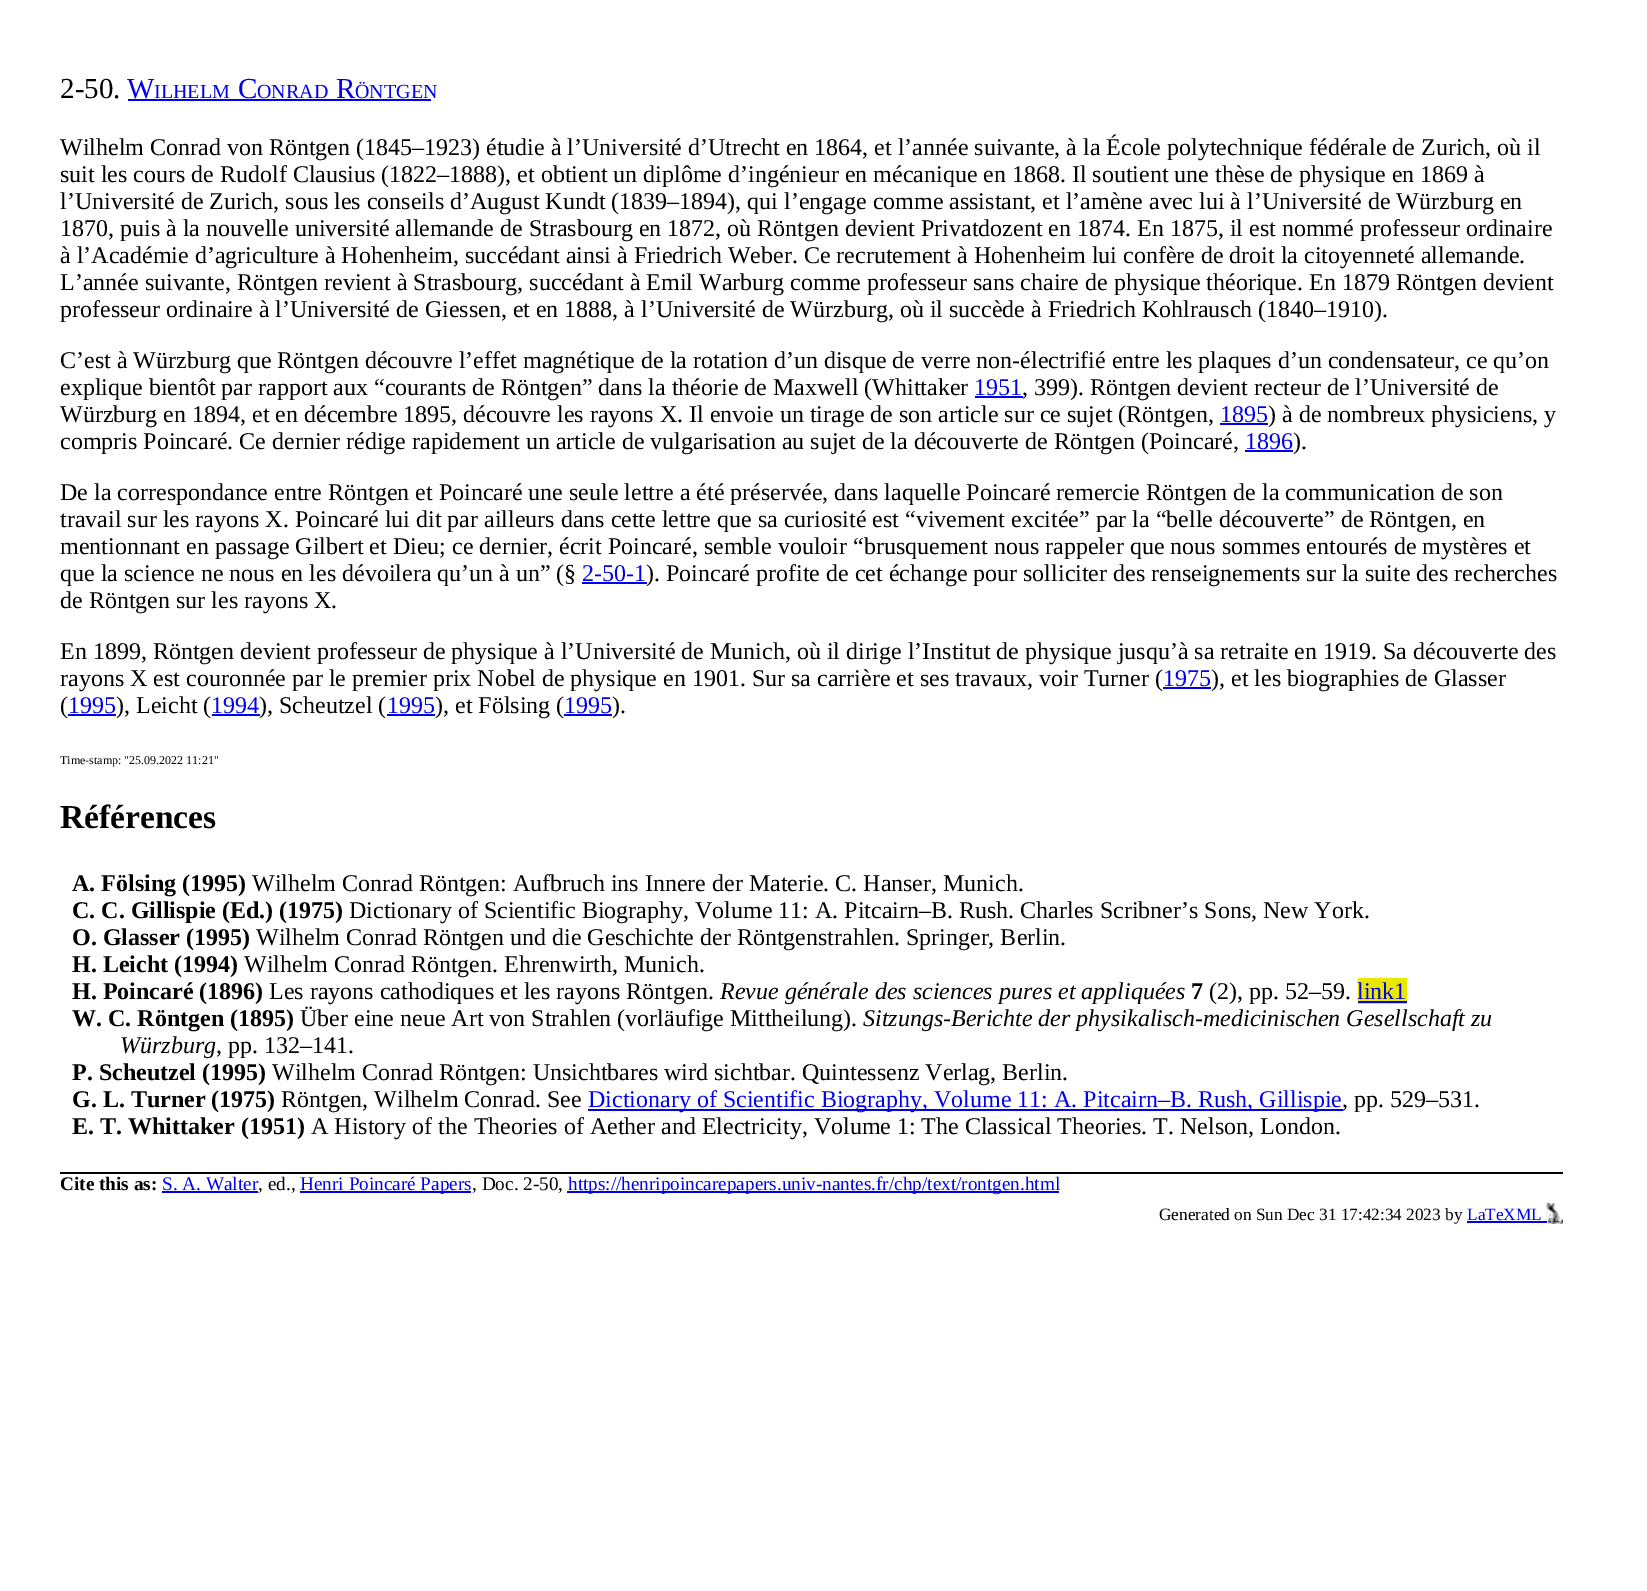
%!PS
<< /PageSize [1647 1591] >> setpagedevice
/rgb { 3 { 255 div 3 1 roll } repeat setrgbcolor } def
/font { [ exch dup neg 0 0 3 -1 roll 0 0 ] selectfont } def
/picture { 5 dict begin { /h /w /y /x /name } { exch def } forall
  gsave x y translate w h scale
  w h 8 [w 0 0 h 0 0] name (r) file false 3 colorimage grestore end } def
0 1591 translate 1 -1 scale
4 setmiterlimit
255 255 255 rgb
0 0 1647 1591 rectfill
[
  [128 99 303 2 0 0 238]
  [975 396 48 2 0 0 238]
  [1220 423 48 2 0 0 238]
  [1245 450 48 2 0 0 238]
  [582 582 65 2 0 0 238]
  [1163 687 48 2 0 0 238]
  [68 714 48 2 0 0 238]
  [212 714 48 2 0 0 238]
  [387 714 48 2 0 0 238]
  [564 714 48 2 0 0 238]
  [1358 978 49 26 235 232 0]
  [1358 1001 49 2 0 0 238]
  [588 1109 755 2 0 0 238]
  [60 1172 1503 2 0 0 0]
  [162 1191 96 2 0 0 238]
  [300 1191 171 2 0 0 238]
  [567 1191 492 2 0 0 238]
  [1467 1221 80 2 0 0 238]
] { aload pop rgb rectfill } forall
(img/1.rgb) 1546 1203 17 21 picture
/LiberationSerif-Regular 29 font
0 0 0 rgb
60 98 moveto (2-50.) show
0 0 238 rgb
127 98 moveto (W) show
/LiberationSerif-Regular 20 font
154 98 moveto (ILHELM) show
/LiberationSerif-Regular 29 font
238 98 moveto (C) show
/LiberationSerif-Regular 20 font
257 98 moveto (ONRAD) show
/LiberationSerif-Regular 29 font
336 98 moveto (R) show
/LiberationSerif-Regular 20 font
355 98 moveto (ÖNTGEN) show
/LiberationSerif-Regular 24 font
0 0 0 rgb
[
  [(Wilhelm Conrad von Röntgen \(1845–1923\) étudie à l’Université d’Utrecht en 1864, et l’année suivante, à la École polytechnique fédérale de Zurich, où il) 60 155]
  [(suit les cours de Rudolf Clausius \(1822–1888\), et obtient un diplôme d’ingénieur en mécanique en 1868. Il soutient une thèse de physique en 1869 à) 60 182]
  [(l’Université de Zurich, sous les conseils d’August Kundt \(1839–1894\), qui l’engage comme assistant, et l’amène avec lui à l’Université de Würzburg en) 60 209]
  [(1870, puis à la nouvelle université allemande de Strasbourg en 1872, où Röntgen devient Privatdozent en 1874. En 1875, il est nommé professeur ordinaire) 60 236]
  [(à l’Académie d’agriculture à Hohenheim, succédant ainsi à Friedrich Weber. Ce recrutement à Hohenheim lui confère de droit la citoyenneté allemande.) 60 263]
  [(L’année suivante, Röntgen revient à Strasbourg, succédant à Emil Warburg comme professeur sans chaire de physique théorique. En 1879 Röntgen devient) 60 290]
  [(professeur ordinaire à l’Université de Giessen, et en 1888, à l’Université de Würzburg, où il succède à Friedrich Kohlrausch \(1840–1910\).) 60 317]
  [(C’est à Würzburg que Röntgen découvre l’effet magnétique de la rotation d’un disque de verre non-électrifié entre les plaques d’un condensateur, ce qu’on) 60 368]
  [(explique bientôt par rapport aux “courants de Röntgen” dans la théorie de Maxwell \(Whittaker) 60 395]
] { aload pop moveto show } forall
0 0 238 rgb
974 395 moveto (1951) show
0 0 0 rgb
1022 395 moveto (, 399\). Röntgen devient recteur de l’Université de) show
60 422 moveto (Würzburg en 1894, et en décembre 1895, découvre les rayons X. Il envoie un tirage de son article sur ce sujet \(Röntgen,) show
0 0 238 rgb
1220 422 moveto (1895) show
0 0 0 rgb
1268 422 moveto (\) à de nombreux physiciens, y) show
60 449 moveto (compris Poincaré. Ce dernier rédige rapidement un article de vulgarisation au sujet de la découverte de Röntgen \(Poincaré,) show
0 0 238 rgb
1245 449 moveto (1896) show
0 0 0 rgb
[
  [(\).) 1293 449]
  [(De la correspondance entre Röntgen et Poincaré une seule lettre a été préservée, dans laquelle Poincaré remercie Röntgen de la communication de son) 60 500]
  [(travail sur les rayons X. Poincaré lui dit par ailleurs dans cette lettre que sa curiosité est “vivement excitée” par la “belle découverte” de Röntgen, en) 60 527]
  [(mentionnant en passage Gilbert et Dieu; ce dernier, écrit Poincaré, semble vouloir “brusquement nous rappeler que nous sommes entourés de mystères et) 60 554]
  [(que la science ne nous en les dévoilera qu’un à un” \(§) 60 581]
] { aload pop moveto show } forall
0 0 238 rgb
582 581 moveto (2-50-1) show
0 0 0 rgb
[
  [(\). Poincaré profite de cet échange pour solliciter des renseignements sur la suite des recherches) 646 581]
  [(de Röntgen sur les rayons X.) 60 608]
  [(En 1899, Röntgen devient professeur de physique à l’Université de Munich, où il dirige l’Institut de physique jusqu’à sa retraite en 1919. Sa découverte des) 60 659]
  [(rayons X est couronnée par le premier prix Nobel de physique en 1901. Sur sa carrière et ses travaux, voir Turner \() 60 686]
] { aload pop moveto show } forall
0 0 238 rgb
1163 686 moveto (1975) show
0 0 0 rgb
1211 686 moveto (\), et les biographies de Glasser) show
60 713 moveto (\() show
0 0 238 rgb
68 713 moveto (1995) show
0 0 0 rgb
116 713 moveto (\), Leicht \() show
0 0 238 rgb
211 713 moveto (1994) show
0 0 0 rgb
259 713 moveto (\), Scheutzel \() show
0 0 238 rgb
387 713 moveto (1995) show
0 0 0 rgb
435 713 moveto (\), et Fölsing \() show
0 0 238 rgb
564 713 moveto (1995) show
0 0 0 rgb
612 713 moveto (\).) show
/LiberationSerif-Regular 12 font
60 764 moveto (Time-stamp: "25.09.2022 11:21") show
/LiberationSerif-Bold 33.5 font
60 828 moveto (Références) show
/LiberationSerif-Bold 24 font
72 891 moveto (A. Fölsing \(1995\)) show
/LiberationSerif-Regular 24 font
252 891 moveto (Wilhelm Conrad Röntgen: Aufbruch ins Innere der Materie. C. Hanser, Munich.) show
/LiberationSerif-Bold 24 font
72 918 moveto (C. C. Gillispie \(Ed.\) \(1975\)) show
/LiberationSerif-Regular 24 font
349 918 moveto (Dictionary of Scientific Biography, Volume 11: A. Pitcairn–B. Rush. Charles Scribner’s Sons, New York.) show
/LiberationSerif-Bold 24 font
72 945 moveto (O. Glasser \(1995\)) show
/LiberationSerif-Regular 24 font
256 945 moveto (Wilhelm Conrad Röntgen und die Geschichte der Röntgenstrahlen. Springer, Berlin.) show
/LiberationSerif-Bold 24 font
72 972 moveto (H. Leicht \(1994\)) show
/LiberationSerif-Regular 24 font
244 972 moveto (Wilhelm Conrad Röntgen. Ehrenwirth, Munich.) show
/LiberationSerif-Bold 24 font
72 999 moveto (H. Poincaré \(1896\)) show
/LiberationSerif-Regular 24 font
269 999 moveto (Les rayons cathodiques et les rayons Röntgen.) show
/LiberationSerif-Italic 24 font
720 999 moveto (Revue générale des sciences pures et appliquées) show
/LiberationSerif-Bold 24 font
1191 999 moveto (7) show
/LiberationSerif-Regular 24 font
1209 999 moveto (\(2\), pp. 52–59.) show
0 0 238 rgb
1357 999 moveto (link1) show
/LiberationSerif-Bold 24 font
0 0 0 rgb
72 1026 moveto (W. C. Röntgen \(1895\)) show
/LiberationSerif-Regular 24 font
300 1026 moveto (Über eine neue Art von Strahlen \(vorläufige Mittheilung\).) show
/LiberationSerif-Italic 24 font
863 1026 moveto (Sitzungs-Berichte der physikalisch-medicinischen Gesellschaft zu) show
120 1053 moveto (Würzburg) show
/LiberationSerif-Regular 24 font
216 1053 moveto (, pp. 132–141.) show
/LiberationSerif-Bold 24 font
72 1080 moveto (P. Scheutzel \(1995\)) show
/LiberationSerif-Regular 24 font
272 1080 moveto (Wilhelm Conrad Röntgen: Unsichtbares wird sichtbar. Quintessenz Verlag, Berlin.) show
/LiberationSerif-Bold 24 font
72 1107 moveto (G. L. Turner \(1975\)) show
/LiberationSerif-Regular 24 font
281 1107 moveto (Röntgen, Wilhelm Conrad. See) show
0 0 238 rgb
588 1107 moveto (Dictionary of Scientific Biography, Volume 11: A. Pitcairn–B. Rush, Gillispie) show
0 0 0 rgb
1342 1107 moveto (, pp. 529–531.) show
/LiberationSerif-Bold 24 font
72 1134 moveto (E. T. Whittaker \(1951\)) show
/LiberationSerif-Regular 24 font
311 1134 moveto (A History of the Theories of Aether and Electricity, Volume 1: The Classical Theories. T. Nelson, London.) show
/LiberationSerif-Bold 19.2 font
60 1190 moveto (Cite this as:) show
/LiberationSerif-Regular 19.2 font
0 0 238 rgb
162 1190 moveto (S. A. Walter) show
0 0 0 rgb
258 1190 moveto (, ed.,) show
0 0 238 rgb
300 1190 moveto (Henri Poincaré Papers) show
0 0 0 rgb
472 1190 moveto (, Doc. 2-50,) show
0 0 238 rgb
568 1190 moveto (https://henripoincarepapers.univ-nantes.fr/chp/text/rontgen.html) show
/LiberationSerif-Regular 17.25 font
0 0 0 rgb
1159 1220 moveto (Generated on Sun Dec 31 17:42:34 2023 by) show
0 0 238 rgb
1467 1220 moveto (LaTeXML) show
showpage
